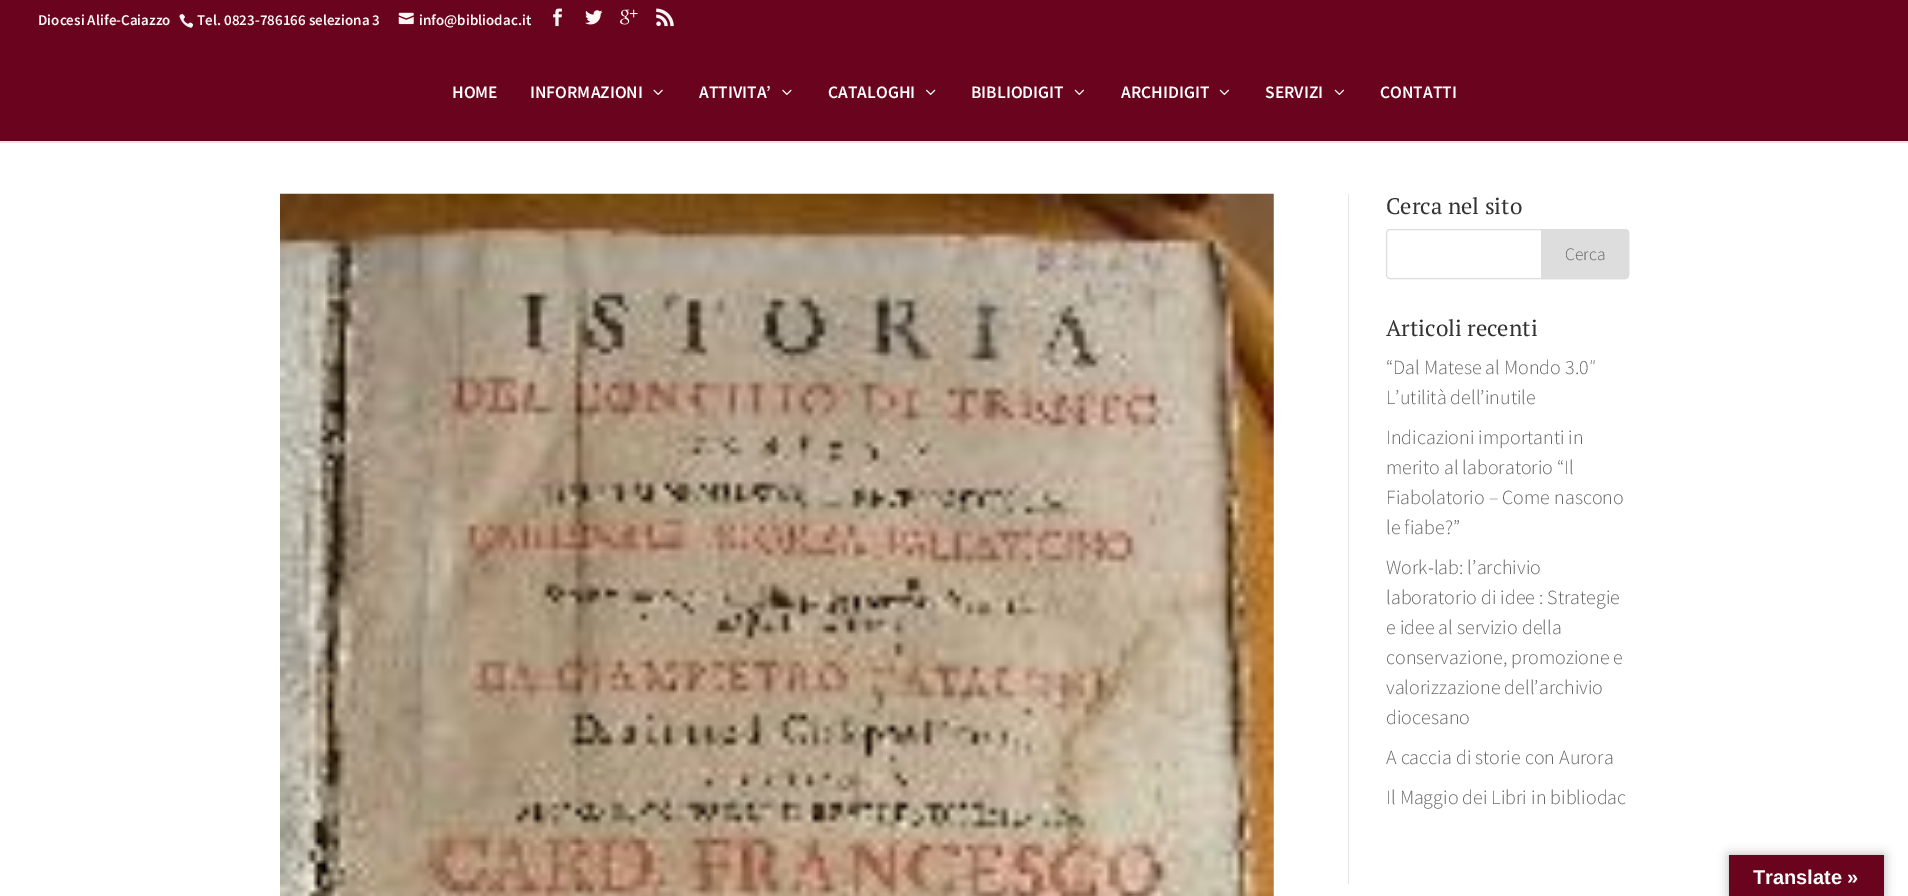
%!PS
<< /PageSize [1908 896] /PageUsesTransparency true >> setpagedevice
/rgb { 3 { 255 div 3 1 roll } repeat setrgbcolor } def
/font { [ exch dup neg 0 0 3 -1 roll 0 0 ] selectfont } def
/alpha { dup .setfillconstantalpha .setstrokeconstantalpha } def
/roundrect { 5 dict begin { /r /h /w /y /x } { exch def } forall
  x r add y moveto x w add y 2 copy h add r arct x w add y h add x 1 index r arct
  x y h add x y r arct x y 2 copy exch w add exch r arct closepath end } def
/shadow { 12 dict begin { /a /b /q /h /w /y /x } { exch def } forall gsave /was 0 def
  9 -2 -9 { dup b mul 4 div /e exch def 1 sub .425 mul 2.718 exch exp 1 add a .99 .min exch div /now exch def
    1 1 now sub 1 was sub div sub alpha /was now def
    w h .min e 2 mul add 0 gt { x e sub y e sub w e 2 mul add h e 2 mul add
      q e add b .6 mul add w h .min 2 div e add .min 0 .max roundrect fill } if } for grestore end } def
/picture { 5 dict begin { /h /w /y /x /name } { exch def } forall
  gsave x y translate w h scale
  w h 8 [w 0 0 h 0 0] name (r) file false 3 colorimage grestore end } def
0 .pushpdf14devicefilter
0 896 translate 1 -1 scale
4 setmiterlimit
255 255 255 rgb
0 0 1908 896 rectfill
106 4 30 rgb
0 0 1908 141 rectfill
(img/1.rgb) 179 14 15 14 picture
(img/2.rgb) 398 12 16 13 picture
(img/3.rgb) 553 8 9 19 picture
(img/4.rgb) 585 10 18 15 picture
(img/5.rgb) 620 9 18 16 picture
(img/6.rgb) 656 8 18 19 picture
0.1 alpha
0 0 0 rgb
0 141 moveto 0 143 lineto 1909 143 lineto 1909 40 lineto 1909 141 lineto closepath fill
1 alpha
(img/7.rgb) 653 89 10 6 picture
(img/8.rgb) 782 89 10 6 picture
(img/9.rgb) 926 89 10 6 picture
(img/10.rgb) 1074 89 10 6 picture
(img/10.rgb) 1219 89 10 6 picture
(img/10.rgb) 1334 89 10 6 picture
(img/11.rgb) 280 193 994 703 picture
230 230 230 rgb
1348 194 1 690 rectfill
221 221 221 rgb
1386.5 229.5 242 49 3.5 roundrect stroke
1541.5 229.5 moveto 1625 229.5 lineto 1627 229.5 1628.5 231 1628.5 233 curveto 1628.5 275 lineto 1628.5 277 1627 278.5 1625 278.5 curveto 1541.5 278.5 lineto closepath gsave fill grestore
stroke
0 0 0 rgb
1729 855 155 41 0 5.5 0.3 shadow
106 4 30 rgb
1729 855 155 41 rectfill
/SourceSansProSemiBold-SemiBold 15 font
255 247 247 rgb
[
  [(Diocesi Alife-Caiazzo) 38 25]
  [(Tel. 0823-786166 seleziona 3) 197 25]
  [(info@bibliodac.it) 419 25]
] { aload pop moveto show } forall
/SourceSansProSemiBold-SemiBold 17.5 font
255 255 255 rgb
[
  [(HOME) 452 98]
  [(INFORMAZIONI) 530 98]
  [(ATTIVITA’) 699 98]
  [(CATALOGHI) 828 98]
  [(BIBLIODIGIT) 971 98]
  [(ARCHIDIGIT) 1121 98]
  [(SERVIZI) 1265 98]
  [(CONTATTI) 1380 98]
] { aload pop moveto show } forall
/PTSerif-Regular 22.5 font
51 51 51 rgb
1386 214 moveto (Cerca nel sito) show
/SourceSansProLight-Light 17.5 font
102 102 102 rgb
1565 260 moveto (Cerca) show
/PTSerif-Regular 22.5 font
51 51 51 rgb
1386 336 moveto (Articoli recenti) show
/SourceSansProLight-Light 20 font
102 102 102 rgb
[
  [(“Dal Matese al Mondo 3.0″) 1386 374]
  [(L’utilità dell’inutile) 1386 404]
  [(Indicazioni importanti in) 1386 444]
  [(merito al laboratorio “Il) 1386 474]
  [(Fiabolatorio – Come nascono) 1386 504]
  [(le fiabe?”) 1386 534]
  [(Work-lab: l’archivio) 1386 574]
  [(laboratorio di idee : Strategie) 1386 604]
  [(e idee al servizio della) 1386 634]
  [(conservazione, promozione e) 1386 664]
  [(valorizzazione dell’archivio) 1386 694]
  [(diocesano) 1386 724]
  [(A caccia di storie con Aurora) 1386 764]
  [(Il Maggio dei Libri in bibliodac) 1386 804]
] { aload pop moveto show } forall
/LiberationSans-Bold 20 font
255 255 255 rgb
1753 884 moveto (Translate ») show
.poppdf14devicefilter showpage
